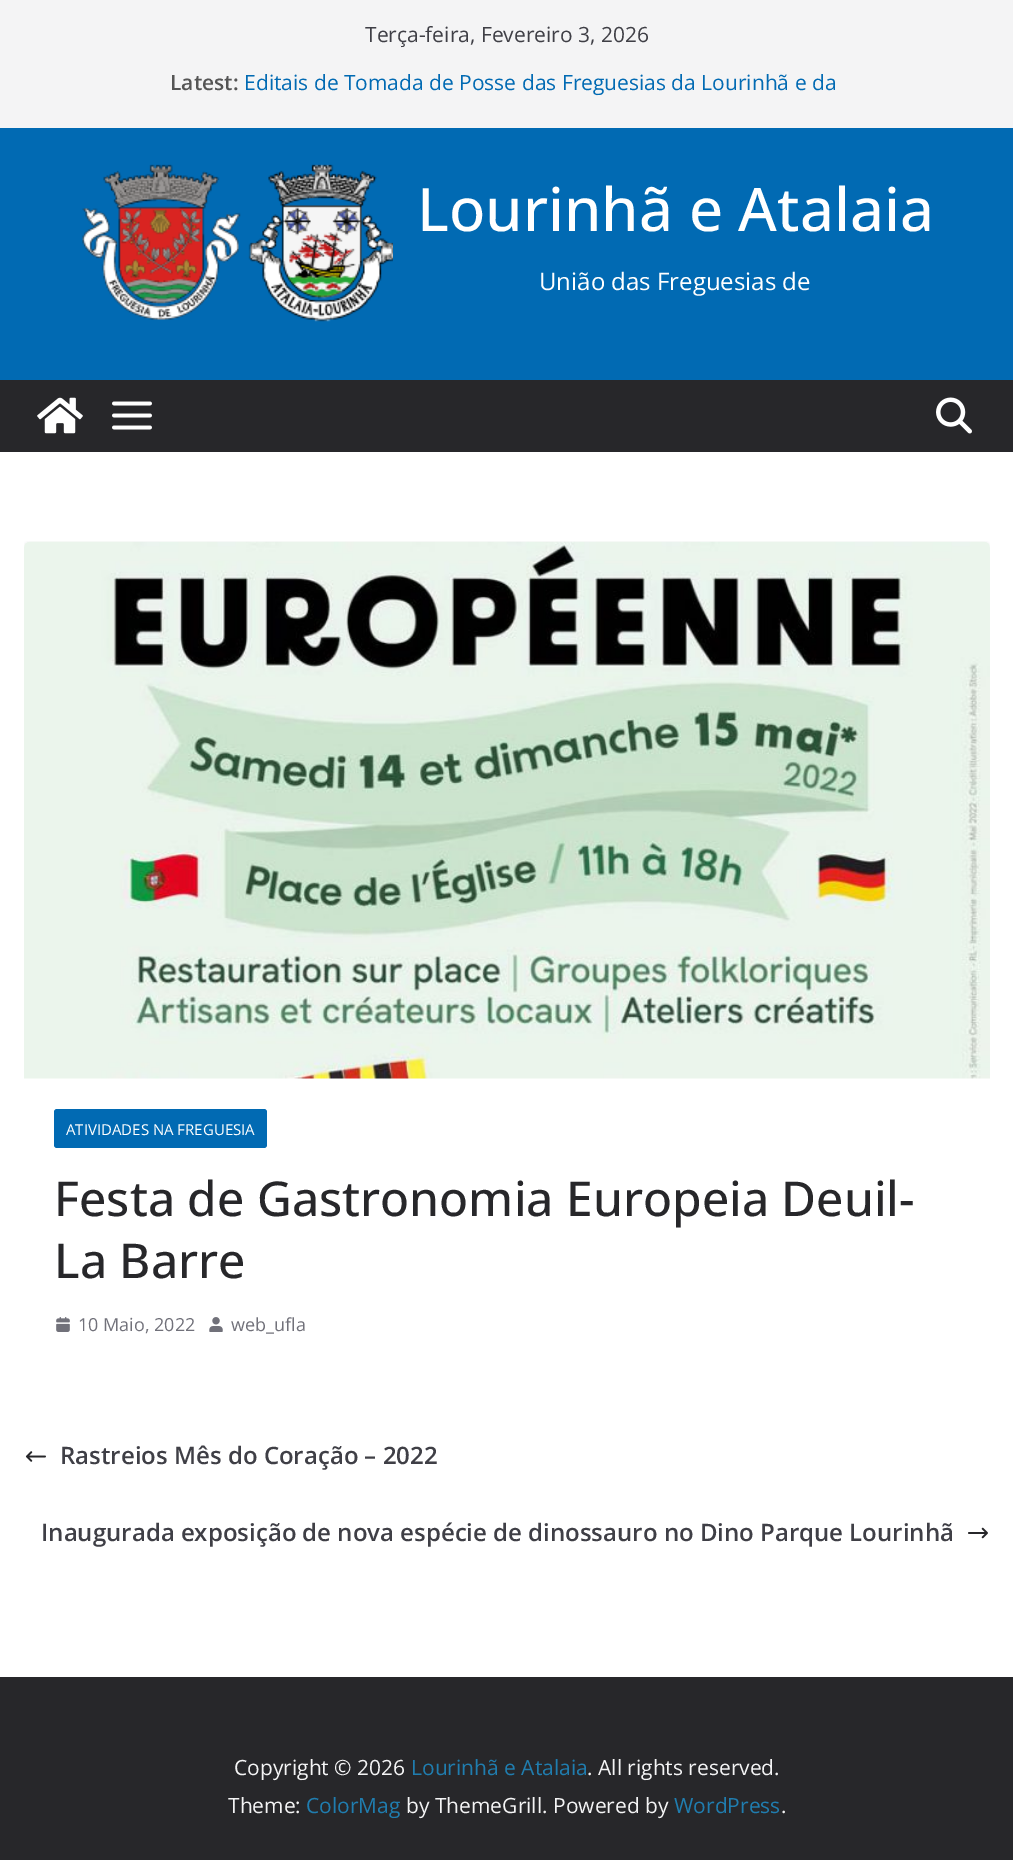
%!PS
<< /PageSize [1013 1860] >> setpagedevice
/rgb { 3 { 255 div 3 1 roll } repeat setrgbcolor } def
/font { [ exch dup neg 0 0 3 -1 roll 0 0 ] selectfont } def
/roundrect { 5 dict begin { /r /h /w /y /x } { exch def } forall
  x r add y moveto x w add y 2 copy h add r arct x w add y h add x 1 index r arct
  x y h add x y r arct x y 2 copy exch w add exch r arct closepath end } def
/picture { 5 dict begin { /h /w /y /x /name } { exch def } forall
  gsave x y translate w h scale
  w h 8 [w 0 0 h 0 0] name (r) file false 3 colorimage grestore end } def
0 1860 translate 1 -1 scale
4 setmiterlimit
255 255 255 rgb
0 0 1013 1860 rectfill
244 244 245 rgb
0 0 1013 128 rectfill
1 106 179 rgb
0 128 1013 252 rectfill
(img/1.rgb) 82 164 311 158 picture
39 39 42 rgb
0 380 1013 72 rectfill
(img/2.rgb) 37 397 46 37 picture
(img/3.rgb) 112 401 40 29 picture
(img/4.rgb) 936 397 36 37 picture
(img/5.rgb) 24 541 966 538 picture
1 106 179 rgb
54 1109 213 39 3 roundrect fill
(img/6.rgb) 56 1317 14 15 picture
(img/7.rgb) 209 1317 14 15 picture
(img/8.rgb) 25 1451 21 11 picture
(img/9.rgb) 968 1527 20 12 picture
39 39 42 rgb
0 1677 1013 183 rectfill
/OpenSans-Regular 21 font
63 63 70 rgb
365 42 moveto (Terça-feira, Fevereiro 3, 2026) show
/OpenSans-SemiBold 21 font
85 85 85 rgb
170 90 moveto (Latest:) show
/OpenSans-Regular 21 font
1 106 179 rgb
244 90 moveto (Editais de Tomada de Posse das Freguesias da Lourinhã e da) show
/OpenSans-Medium 60 font
255 255 255 rgb
417 231 moveto (Lourinhã e Atalaia) show
/OpenSans-Regular 24 font
539 290 moveto (União das Freguesias de) show
/OpenSans-Regular 15 font
66 1135 moveto (ATIVIDADES NA FREGUESIA) show
/OpenSans-Medium 48 font
39 39 42 rgb
54 1216 moveto (Festa de Gastronomia Europeia Deuil-) show
54 1278 moveto (La Barre) show
/OpenSans-Regular 18 font
113 113 122 rgb
78 1331 moveto (10 Maio, 2022) show
231 1331 moveto (web_ufla) show
/OpenSans-SemiBold 24 font
63 63 70 rgb
60 1464 moveto (Rastreios Mês do Coração – 2022) show
41 1541 moveto (Inaugurada exposição de nova espécie de dinossauro no Dino Parque Lourinhã) show
/OpenSans-Regular 21 font
244 244 245 rgb
234 1775 moveto (Copyright © 2026) show
32 125 175 rgb
411 1775 moveto (Lourinhã e Atalaia) show
244 244 245 rgb
587 1775 moveto (. All rights reserved.) show
228 1813 moveto (Theme:) show
32 125 175 rgb
306 1813 moveto (ColorMag) show
244 244 245 rgb
406 1813 moveto (by ThemeGrill. Powered by) show
32 125 175 rgb
674 1813 moveto (WordPress) show
244 244 245 rgb
781 1813 moveto (.) show
showpage
